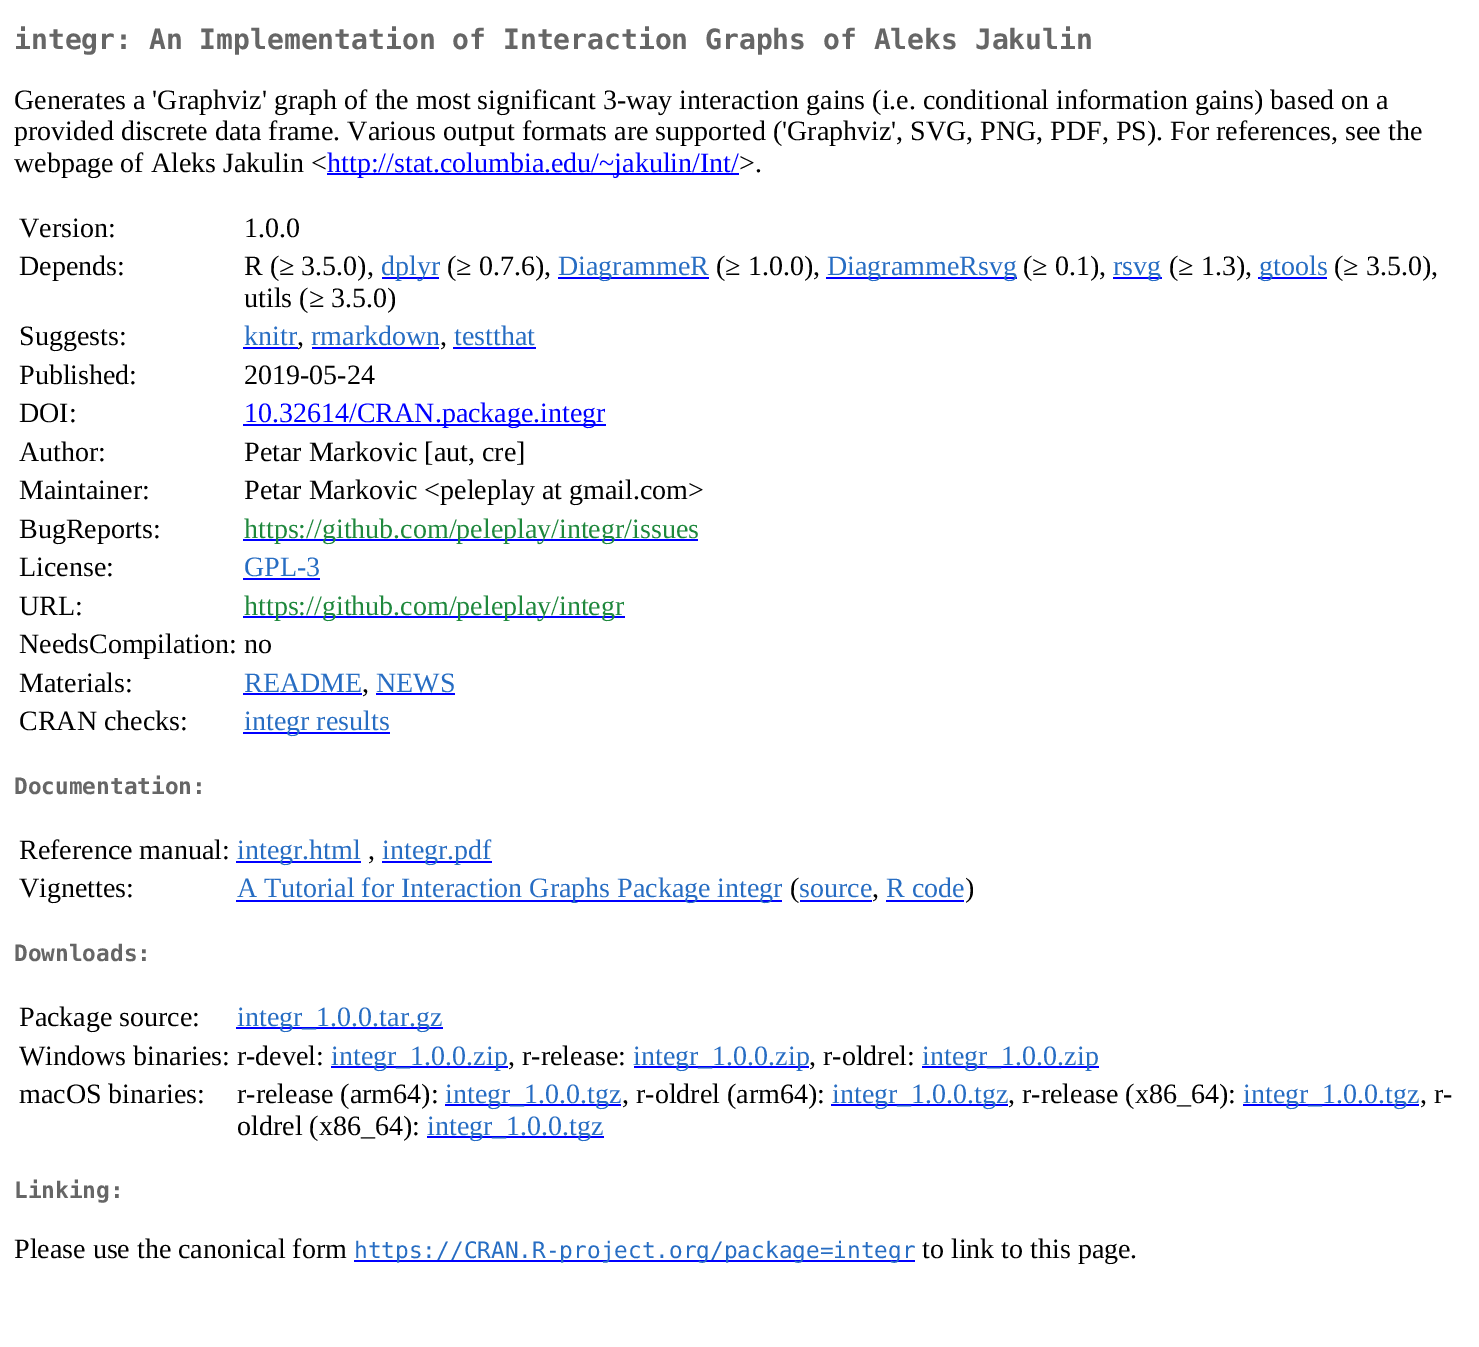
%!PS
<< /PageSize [1479 1347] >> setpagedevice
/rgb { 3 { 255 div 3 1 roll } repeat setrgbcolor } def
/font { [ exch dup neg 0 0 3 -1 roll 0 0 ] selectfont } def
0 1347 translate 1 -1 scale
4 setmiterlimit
255 255 255 rgb
0 0 1479 1347 rectfill
[
  [327 173 412 2 0 0 255]
  [382 277 57 2 0 0 255]
  [558 277 151 2 0 0 255]
  [826 277 191 2 0 0 255]
  [1113 277 49 2 0 0 255]
  [1258 277 69 2 0 0 255]
  [243 347 55 2 0 0 255]
  [312 347 127 2 0 0 255]
  [453 347 83 2 0 0 255]
  [243 424 363 2 0 0 255]
  [243 539 455 2 0 0 255]
  [243 578 77 2 0 0 255]
  [243 616 382 2 0 0 255]
  [243 693 119 2 0 0 255]
  [376 693 79 2 0 0 255]
  [243 732 147 2 0 0 255]
  [236 861 125 2 0 0 255]
  [382 861 110 2 0 0 255]
  [236 900 546 2 0 0 255]
  [800 900 72 2 0 0 255]
  [886 900 78 2 0 0 255]
  [236 1027 207 2 0 0 255]
  [331 1066 177 2 0 0 255]
  [634 1066 175 2 0 0 255]
  [922 1066 177 2 0 0 255]
  [445 1104 176 2 0 0 255]
  [831 1104 177 2 0 0 255]
  [1243 1104 176 2 0 0 255]
  [427 1136 177 2 0 0 255]
  [354 1260 561 2 0 0 255]
] { aload pop rgb rectfill } forall
/DejaVuSansMono-Bold 28 font
102 102 102 rgb
14 49 moveto (integr: An Implementation of Interaction Graphs of Aleks Jakulin) show
/LiberationSerif-Regular 28 font
0 0 0 rgb
[
  [(Generates a 'Graphviz' graph of the most significant 3-way interaction gains \(i.e. conditional information gains\) based on a) 14 109]
  [(provided discrete data frame. Various output formats are supported \('Graphviz', SVG, PNG, PDF, PS\). For references, see the) 14 140]
  [(webpage of Aleks Jakulin <) 14 172]
] { aload pop moveto show } forall
0 0 255 rgb
327 172 moveto (http://stat.columbia.edu/~jakulin/Int/) show
0 0 0 rgb
[
  [(>.) 739 172]
  [(Version:) 19 237]
  [(1.0.0) 244 237]
  [(Depends:) 19 275]
  [(R \(≥ 3.5.0\),) 244 275]
] { aload pop moveto show } forall
39 109 195 rgb
381 275 moveto (dplyr) show
0 0 0 rgb
447 275 moveto (\(≥ 0.7.6\),) show
39 109 195 rgb
558 275 moveto (DiagrammeR) show
0 0 0 rgb
716 275 moveto (\(≥ 1.0.0\),) show
39 109 195 rgb
827 275 moveto (DiagrammeRsvg) show
0 0 0 rgb
1023 275 moveto (\(≥ 0.1\),) show
39 109 195 rgb
1113 275 moveto (rsvg) show
0 0 0 rgb
1169 275 moveto (\(≥ 1.3\),) show
39 109 195 rgb
1259 275 moveto (gtools) show
0 0 0 rgb
[
  [(\(≥ 3.5.0\),) 1334 275]
  [(utils \(≥ 3.5.0\)) 244 307]
  [(Suggests:) 19 345]
] { aload pop moveto show } forall
39 109 195 rgb
244 345 moveto (knitr) show
0 0 0 rgb
297 345 moveto (,) show
39 109 195 rgb
311 345 moveto (rmarkdown) show
0 0 0 rgb
440 345 moveto (,) show
39 109 195 rgb
454 345 moveto (testthat) show
0 0 0 rgb
[
  [(Published:) 19 384]
  [(2019-05-24) 244 384]
  [(DOI:) 19 422]
] { aload pop moveto show } forall
0 0 255 rgb
244 422 moveto (10.32614/CRAN.package.integr) show
0 0 0 rgb
[
  [(Author:) 19 461]
  [(Petar Markovic [aut, cre]) 244 461]
  [(Maintainer:) 19 499]
  [(Petar Markovic <peleplay at gmail.com>) 244 499]
  [(BugReports:) 19 538]
] { aload pop moveto show } forall
31 136 61 rgb
244 538 moveto (https://github.com/peleplay/integr/issues) show
0 0 0 rgb
19 576 moveto (License:) show
39 109 195 rgb
244 576 moveto (GPL-3) show
0 0 0 rgb
19 615 moveto (URL:) show
31 136 61 rgb
244 615 moveto (https://github.com/peleplay/integr) show
0 0 0 rgb
19 653 moveto (NeedsCompilation: no) show
19 692 moveto (Materials:) show
39 109 195 rgb
244 692 moveto (README) show
0 0 0 rgb
362 692 moveto (,) show
39 109 195 rgb
376 692 moveto (NEWS) show
0 0 0 rgb
19 730 moveto (CRAN checks:) show
39 109 195 rgb
244 730 moveto (integr results) show
/DejaVuSansMono-Bold 22.75 font
102 102 102 rgb
14 794 moveto (Documentation:) show
/LiberationSerif-Regular 28 font
0 0 0 rgb
19 859 moveto (Reference manual:) show
39 109 195 rgb
237 859 moveto (integr.html) show
0 0 0 rgb
368 859 moveto (,) show
39 109 195 rgb
382 859 moveto (integr.pdf) show
0 0 0 rgb
19 897 moveto (Vignettes:) show
39 109 195 rgb
237 897 moveto (A Tutorial for Interaction Graphs Package integr) show
0 0 0 rgb
790 897 moveto (\() show
39 109 195 rgb
799 897 moveto (source) show
0 0 0 rgb
872 897 moveto (,) show
39 109 195 rgb
886 897 moveto (R code) show
0 0 0 rgb
965 897 moveto (\)) show
/DejaVuSansMono-Bold 22.75 font
102 102 102 rgb
14 961 moveto (Downloads:) show
/LiberationSerif-Regular 28 font
0 0 0 rgb
19 1026 moveto (Package source:) show
39 109 195 rgb
237 1026 moveto (integr_1.0.0.tar.gz) show
0 0 0 rgb
19 1065 moveto (Windows binaries: r-devel:) show
39 109 195 rgb
331 1065 moveto (integr_1.0.0.zip) show
0 0 0 rgb
508 1065 moveto (, r-release:) show
39 109 195 rgb
633 1065 moveto (integr_1.0.0.zip) show
0 0 0 rgb
809 1065 moveto (, r-oldrel:) show
39 109 195 rgb
922 1065 moveto (integr_1.0.0.zip) show
0 0 0 rgb
19 1103 moveto (macOS binaries:) show
237 1103 moveto (r-release \(arm64\):) show
39 109 195 rgb
445 1103 moveto (integr_1.0.0.tgz) show
0 0 0 rgb
622 1103 moveto (, r-oldrel \(arm64\):) show
39 109 195 rgb
832 1103 moveto (integr_1.0.0.tgz) show
0 0 0 rgb
1008 1103 moveto (, r-release \(x86_64\):) show
39 109 195 rgb
1243 1103 moveto (integr_1.0.0.tgz) show
0 0 0 rgb
1420 1103 moveto (, r-) show
237 1135 moveto (oldrel \(x86_64\):) show
39 109 195 rgb
427 1135 moveto (integr_1.0.0.tgz) show
/DejaVuSansMono-Bold 22.75 font
102 102 102 rgb
14 1198 moveto (Linking:) show
/LiberationSerif-Regular 28 font
0 0 0 rgb
14 1258 moveto (Please use the canonical form) show
/DejaVuSansMono-Regular 22.75 font
39 109 195 rgb
354 1258 moveto (https://CRAN.R-project.org/package=integr) show
/LiberationSerif-Regular 28 font
0 0 0 rgb
922 1258 moveto (to link to this page.) show
showpage
